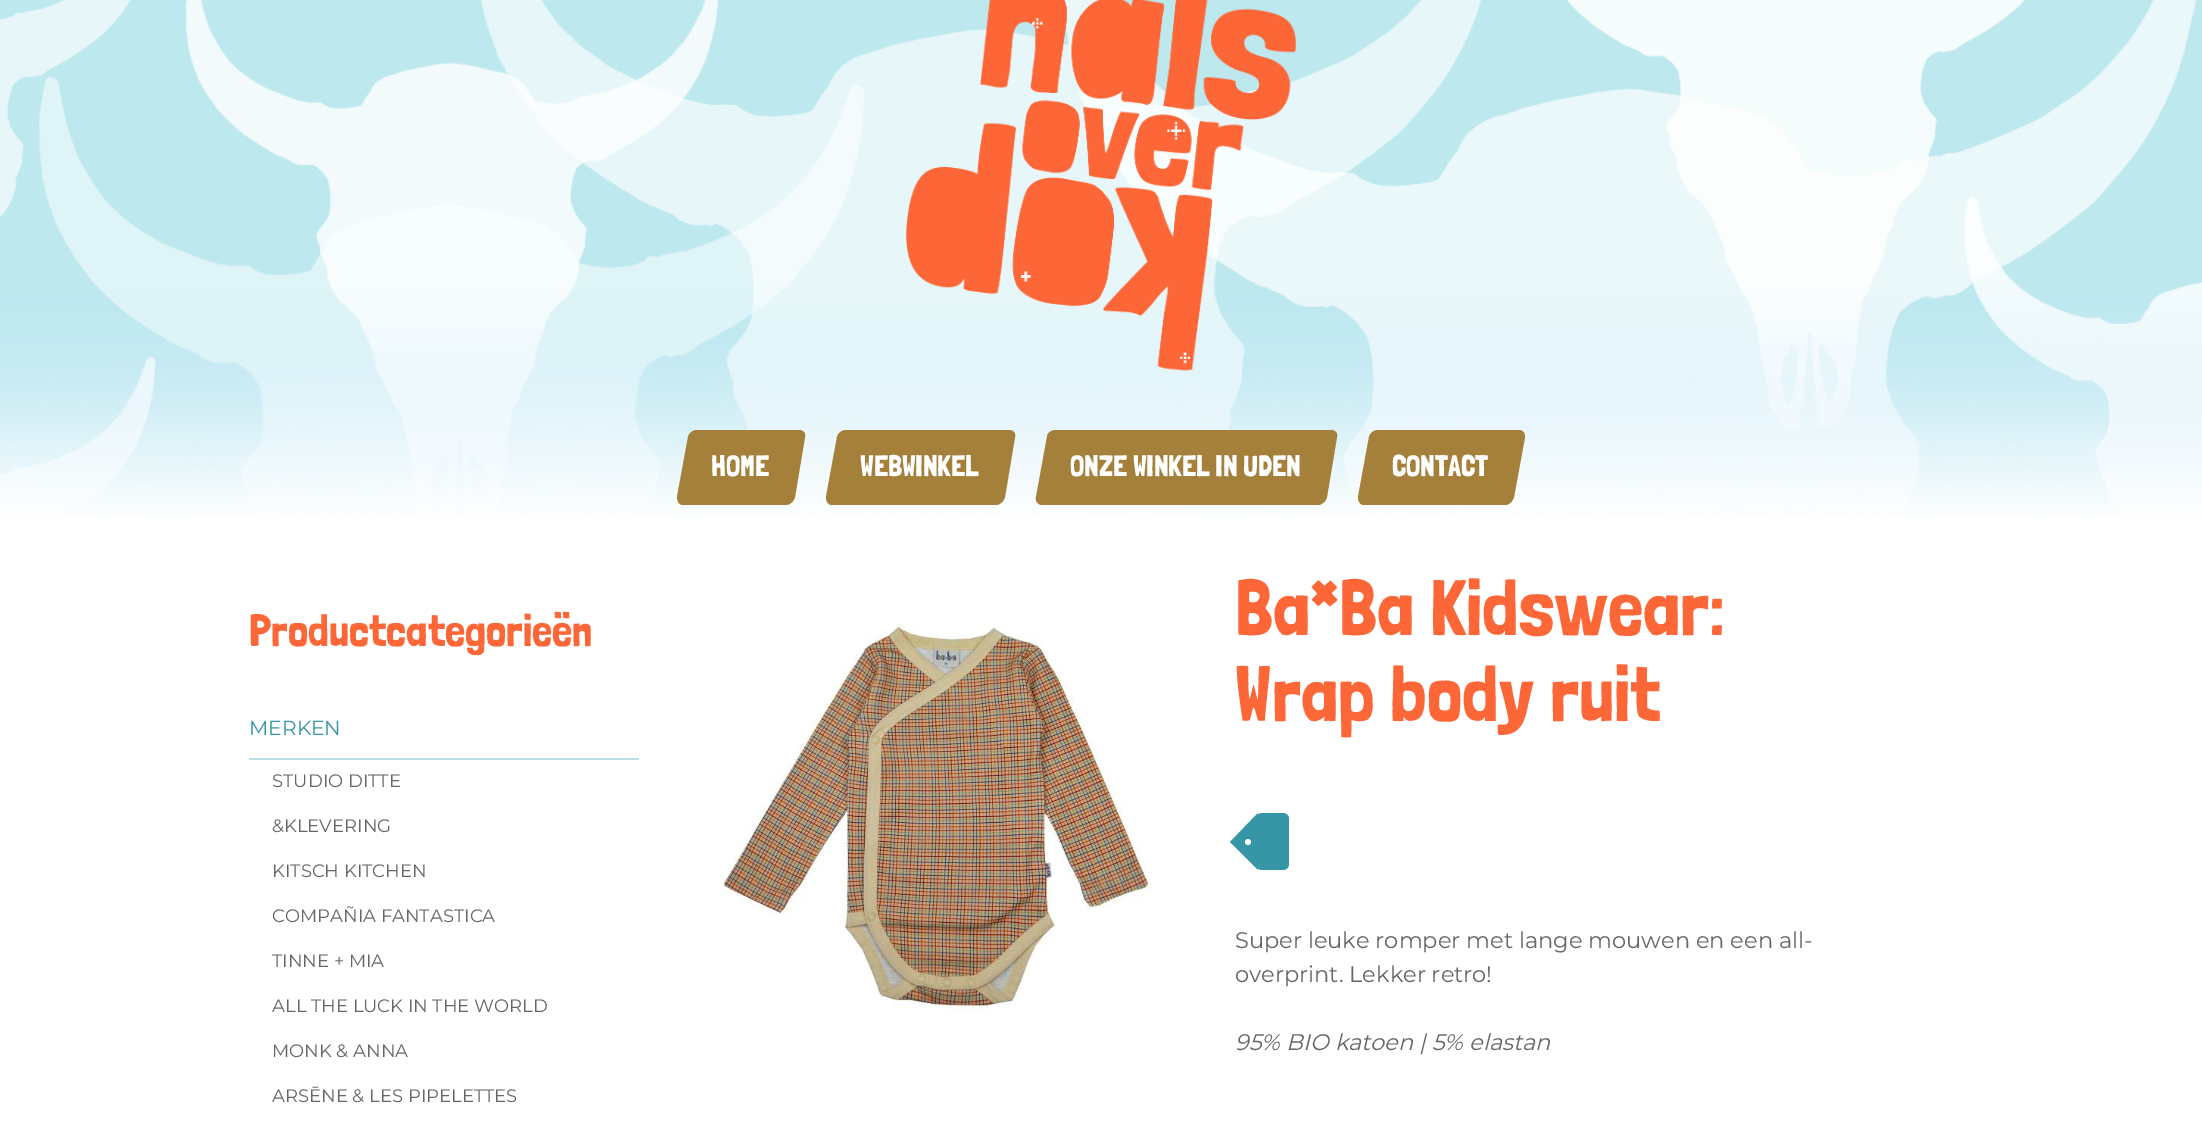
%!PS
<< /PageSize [2202 1123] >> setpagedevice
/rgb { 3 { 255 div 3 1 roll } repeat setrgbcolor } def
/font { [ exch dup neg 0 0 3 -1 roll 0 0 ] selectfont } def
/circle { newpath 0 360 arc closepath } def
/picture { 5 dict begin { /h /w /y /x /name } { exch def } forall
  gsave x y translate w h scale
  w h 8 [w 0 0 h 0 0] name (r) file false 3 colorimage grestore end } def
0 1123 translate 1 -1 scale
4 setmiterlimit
255 255 255 rgb
0 0 2202 1123 rectfill
(img/1.rgb) 0 0 2202 516 picture
(img/2.rgb) 906 0 390 371 picture
(img/3.rgb) 1021 17 170 347 picture
164 128 59 rgb
697 430 moveto 799 430 lineto 803 430 806 433 805 437 curveto 795 497 lineto 794 501 790 505 786 505 curveto 683 505 lineto 679 505 677 501 677 497 curveto 688 437 lineto 689 433 693 430 697 430 curveto closepath fill
846 430 moveto 1009 430 lineto 1013 430 1016 433 1015 437 curveto 1005 497 lineto 1004 501 1000 505 996 505 curveto 832 505 lineto 828 505 826 501 826 497 curveto 837 437 lineto 838 433 842 430 846 430 curveto closepath fill
1056 430 moveto 1331 430 lineto 1335 430 1338 433 1337 437 curveto 1327 497 lineto 1326 501 1322 505 1318 505 curveto 1042 505 lineto 1038 505 1035 501 1036 497 curveto 1047 437 lineto 1047 433 1051 430 1056 430 curveto closepath fill
1378 430 moveto 1519 430 lineto 1523 430 1525 433 1525 437 curveto 1514 497 lineto 1513 501 1509 505 1505 505 curveto 1364 505 lineto 1360 505 1358 501 1358 497 curveto 1369 437 lineto 1370 433 1374 430 1378 430 curveto closepath fill
186 224 230 rgb
249 758 390 2 rectfill
(img/4.rgb) 721 623 434 388 picture
54 150 165 rgb
1262 813 moveto 1283 813 lineto 1286.5 813 1289 815.5 1289 819 curveto 1289 864 lineto 1289 867.5 1286.5 870 1283 870 curveto 1262 870 lineto 1259 870 1257 868 1257 865 curveto 1257 818 lineto 1257 815 1259 813 1262 813 curveto closepath fill
1258 868 1 1 rectfill
1258 813 moveto 1258 870 lineto 1230 842 lineto closepath fill
255 255 255 rgb
1248 842 3 circle fill
/LondrinaSolid-Regular 29.75 font
711 476 moveto (HOME) show
860 476 moveto -0.25 0 (WEBWINKEL) ashow
1070 476 moveto -0.2 0 (ONZE WINKEL IN UDEN) ashow
1392 476 moveto -0.25 0 (CONTACT) ashow
/LondrinaSolid-Regular 45 font
253 103 56 rgb
249 646 moveto (Productcategorieën) show
/Montserrat-Thin 20.25 font
54 150 165 rgb
249 735 moveto (MERKEN) show
/Montserrat-Thin 18 font
102 102 102 rgb
[
  [(STUDIO DITTE) 272 787]
  [(&KLEVERING) 272 832]
  [(KITSCH KITCHEN) 272 877]
  [(COMPAÑIA FANTASTICA) 272 922]
  [(TINNE + MIA) 272 967]
  [(ALL THE LUCK IN THE WORLD) 272 1012]
  [(MONK & ANNA) 272 1057]
  [(ARSĒNE & LES PIPELETTES) 272 1102]
] { aload pop moveto show } forall
/LondrinaSolid-Regular 78.75 font
253 103 56 rgb
1235 635 moveto (Ba*Ba Kidswear:) show
1235 721 moveto (Wrap body ruit) show
/Montserrat-Thin 22.5 font
102 102 102 rgb
1235 948 moveto (Super leuke romper met lange mouwen en een all-) show
1235 982 moveto (overprint. Lekker retro!) show
/Montserrat-ThinItalic 22.5 font
1235 1050 moveto (95% BIO katoen | 5% elastan) show
showpage
